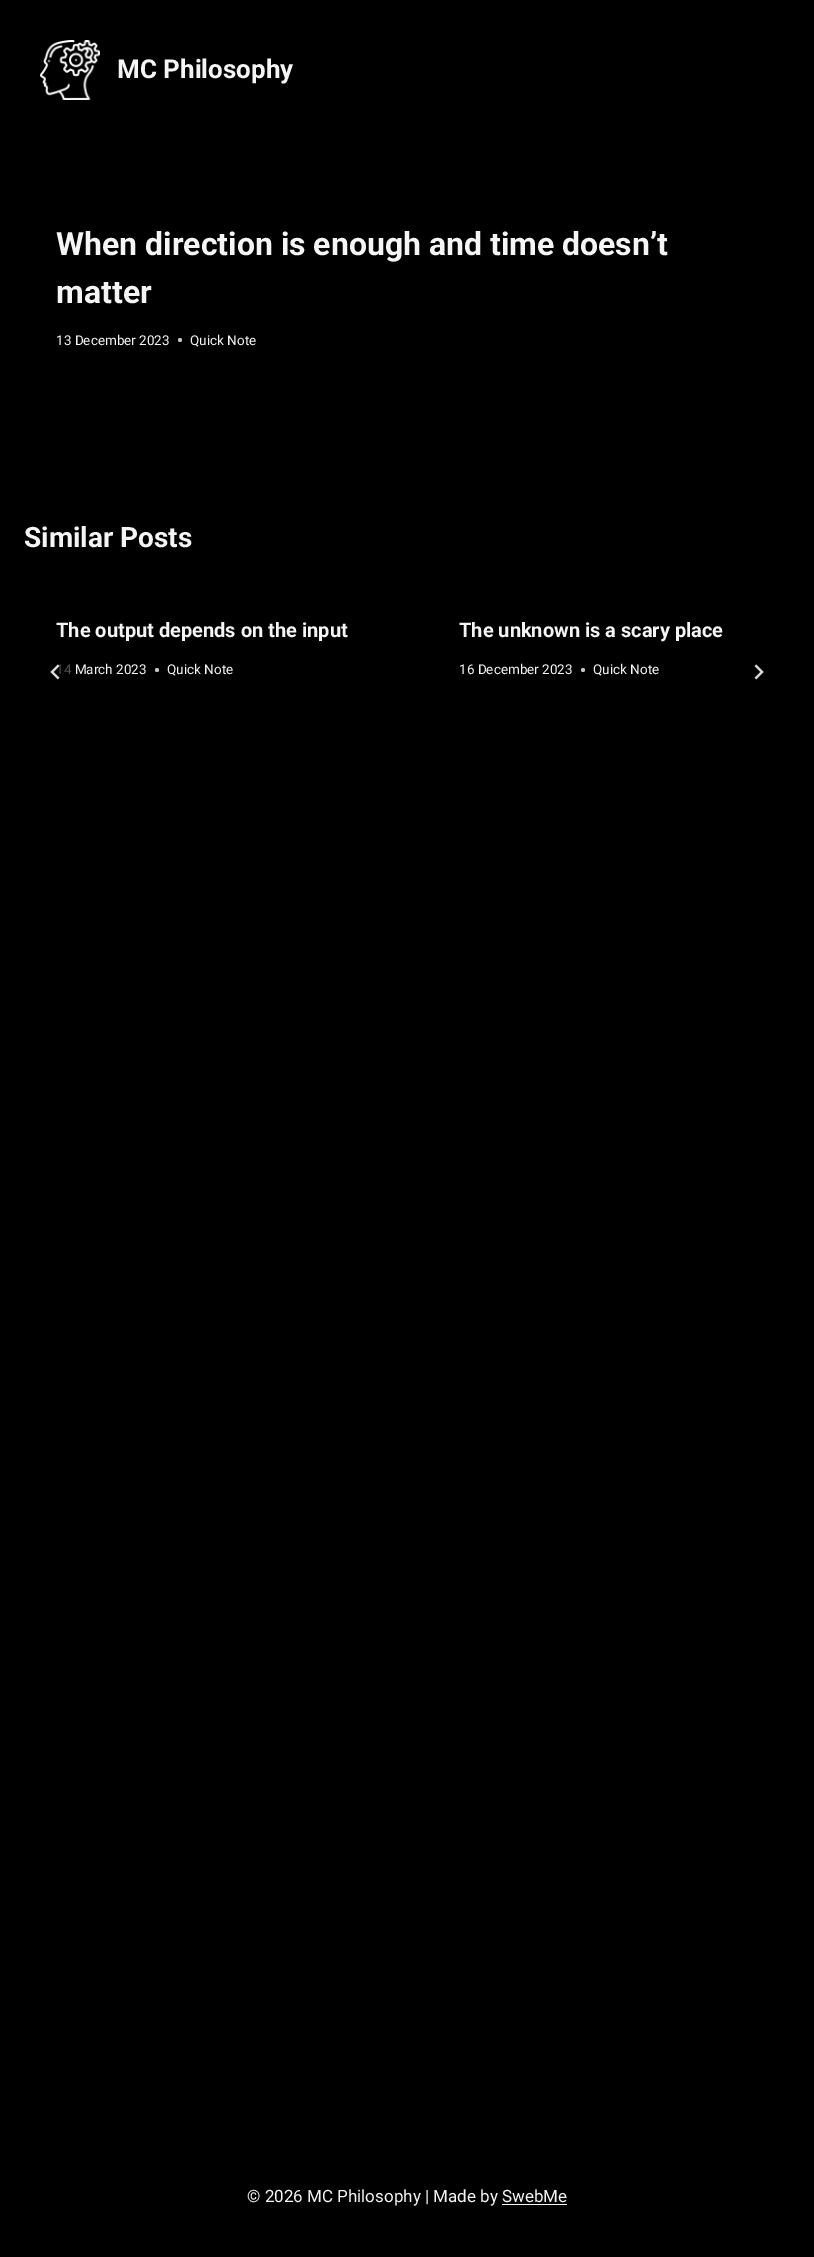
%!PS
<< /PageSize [814 2257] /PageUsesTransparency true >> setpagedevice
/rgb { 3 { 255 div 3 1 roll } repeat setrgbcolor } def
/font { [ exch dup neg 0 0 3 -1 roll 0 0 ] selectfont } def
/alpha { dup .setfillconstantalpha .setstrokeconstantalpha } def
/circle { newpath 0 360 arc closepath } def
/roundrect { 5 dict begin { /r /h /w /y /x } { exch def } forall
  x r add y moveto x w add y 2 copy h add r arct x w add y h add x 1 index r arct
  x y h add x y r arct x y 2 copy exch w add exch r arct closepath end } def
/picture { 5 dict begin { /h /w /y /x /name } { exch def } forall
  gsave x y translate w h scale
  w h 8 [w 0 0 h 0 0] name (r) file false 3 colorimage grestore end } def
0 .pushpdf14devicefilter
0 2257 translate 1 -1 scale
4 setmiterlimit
0 0 0 rgb
0 0 814 2257 rectfill
(img/1.rgb) 40 40 60 60 picture
196 196 196 rgb
180 340 2 circle fill
157 670 2 circle fill
583 670 2 circle fill
(img/3.rgb) 754 664 10 16 picture
245 245 245 rgb
502 2204 65 1 rectfill
/Roboto-Bold 26 font
117 78 moveto (MC Philosophy) show
/Roboto-Bold 32 font
56 255 moveto (When direction is enough and time doesn’t) show
56 303 moveto (matter) show
/Roboto-Regular 13.5 font
56 345 moveto (13 December 2023) show
190 345 moveto (Quick Note) show
/Roboto-Bold 28 font
24 547 moveto (Similar Posts) show
/Roboto-Bold 20 font
56 637 moveto (The output depends on the input) show
/Roboto-Regular 13.5 font
56 674 moveto (14 March 2023) show
167 674 moveto (Quick Note) show
/Roboto-Bold 20 font
459 637 moveto (The unknown is a scary place) show
/Roboto-Regular 13.5 font
459 674 moveto (16 December 2023) show
593 674 moveto (Quick Note) show
0.68 alpha
0 0 0 rgb
40 648 32 48 3 roundrect fill
1 alpha
(img/2.rgb) 50 664 10 16 picture
/Roboto-Regular 17 font
245 245 245 rgb
247 2202 moveto (© 2026 MC Philosophy | Made by SwebMe) show
.poppdf14devicefilter showpage
